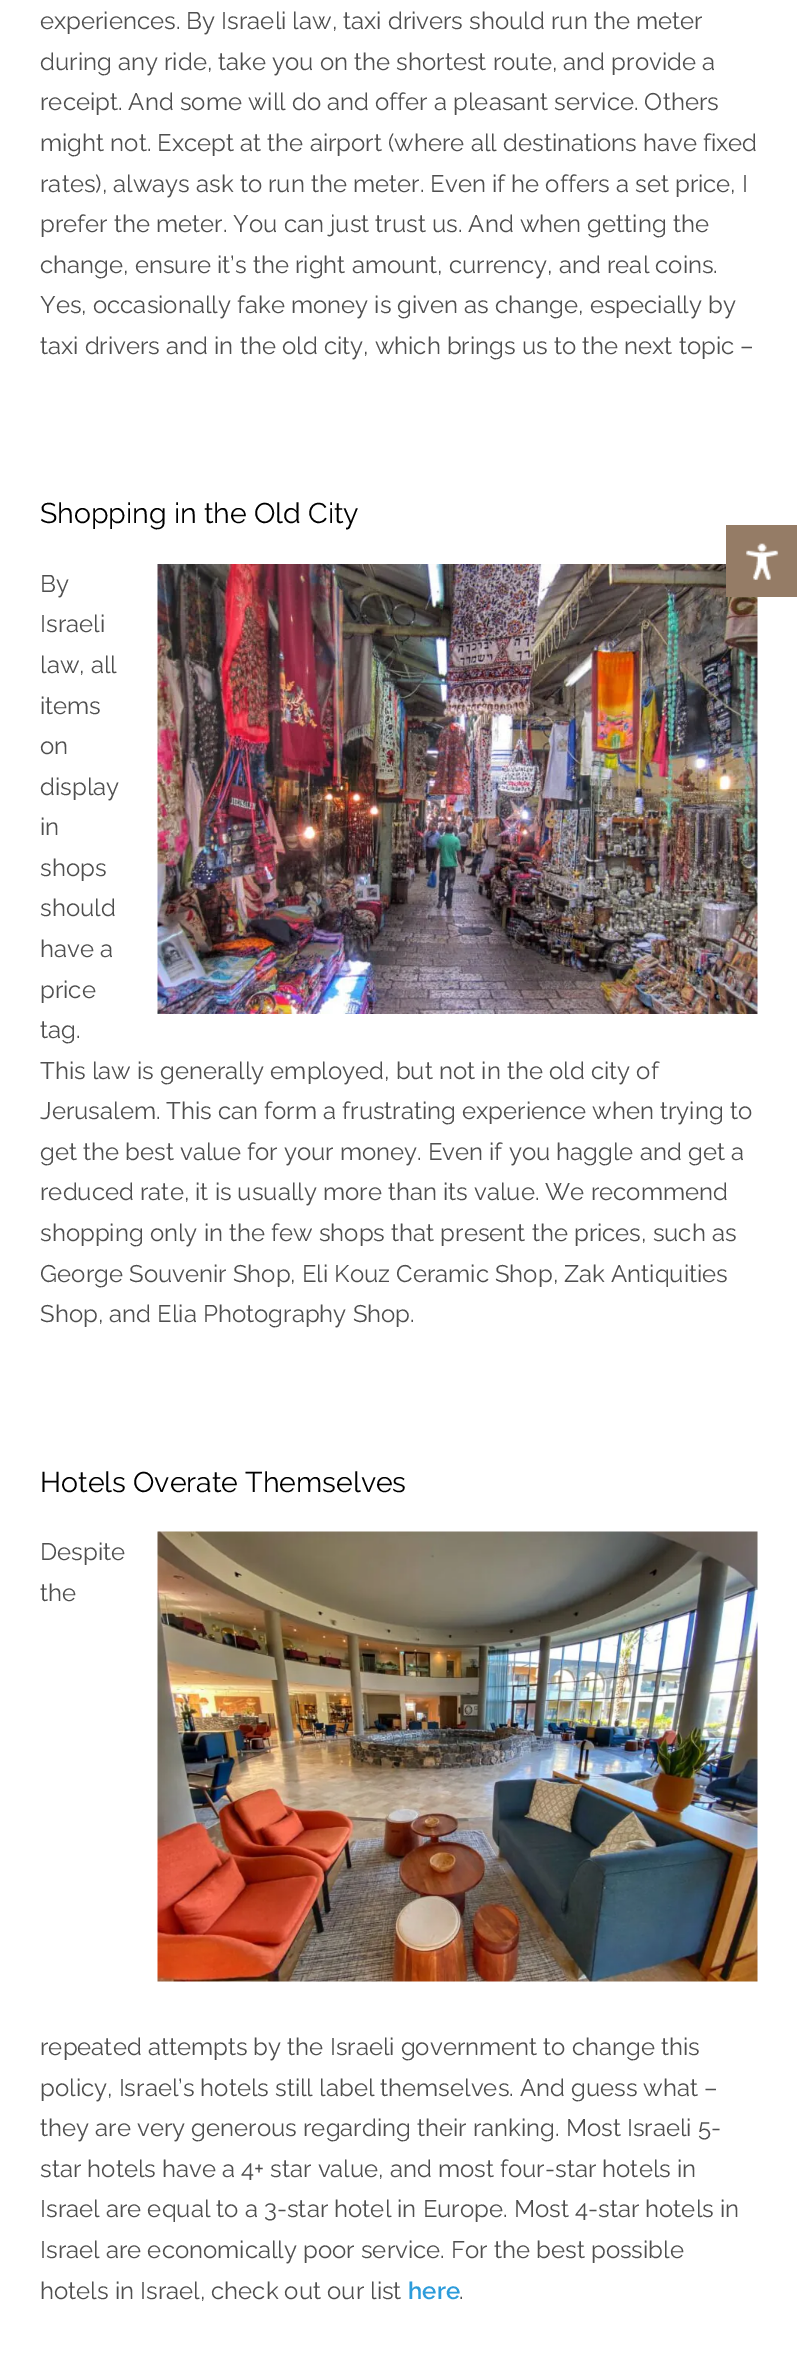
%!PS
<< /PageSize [797 2373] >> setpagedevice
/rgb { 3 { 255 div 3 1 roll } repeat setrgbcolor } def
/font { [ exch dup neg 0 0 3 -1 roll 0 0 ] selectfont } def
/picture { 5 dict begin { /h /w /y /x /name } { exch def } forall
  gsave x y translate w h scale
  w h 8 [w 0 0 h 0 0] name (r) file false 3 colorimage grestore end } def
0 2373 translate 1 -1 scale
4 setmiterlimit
255 255 255 rgb
0 0 797 2373 rectfill
(img/1.rgb) 157 564 601 450 picture
(img/2.rgb) 157 1531 601 451 picture
(img/3.rgb) 726 525 71 72 picture
/Raleway-Regular 24 font
79 79 79 rgb
[
  [(experiences. By Israeli law, taxi drivers should run the meter) 40 29]
  [(during any ride, take you on the shortest route, and provide a) 40 70]
  [(receipt. And some will do and offer a pleasant service. Others) 40 110]
  [(might not. Except at the airport \(where all destinations have fixed) 40 151]
  [(rates\), always ask to run the meter. Even if he offers a set price, I) 40 192]
  [(prefer the meter. You can just trust us. And when getting the) 40 232]
  [(change, ensure it’s the right amount, currency, and real coins.) 40 273]
  [(Yes, occasionally fake money is given as change, especially by) 40 313]
  [(taxi drivers and in the old city, which brings us to the next topic –) 40 354]
] { aload pop moveto show } forall
/Raleway-Regular 28.5 font
0 0 0 rgb
40 523 moveto (Shopping in the Old City) show
/Raleway-Regular 24 font
79 79 79 rgb
[
  [(By) 40 592]
  [(Israeli) 40 632]
  [(law, all) 40 673]
  [(items) 40 714]
  [(on) 40 754]
  [(display) 40 795]
  [(in) 40 835]
  [(shops) 40 876]
  [(should) 40 916]
  [(have a) 40 957]
  [(price) 40 998]
  [(tag.) 40 1038]
  [(This law is generally employed, but not in the old city of) 40 1079]
  [(Jerusalem. This can form a frustrating experience when trying to) 40 1119]
  [(get the best value for your money. Even if you haggle and get a) 40 1160]
  [(reduced rate, it is usually more than its value. We recommend) 40 1200]
  [(shopping only in the few shops that present the prices, such as) 40 1241]
  [(George Souvenir Shop, Eli Kouz Ceramic Shop, Zak Antiquities) 40 1282]
  [(Shop, and Elia Photography Shop.) 40 1322]
] { aload pop moveto show } forall
/Raleway-Regular 28.5 font
0 0 0 rgb
40 1492 moveto (Hotels Overate Themselves) show
/Raleway-Regular 24 font
79 79 79 rgb
[
  [(Despite) 40 1560]
  [(the) 40 1601]
  [(repeated attempts by the Israeli government to change this) 40 2055]
  [(policy, Israel’s hotels still label themselves. And guess what –) 40 2096]
  [(they are very generous regarding their ranking. Most Israeli 5-) 40 2136]
  [(star hotels have a 4+ star value, and most four-star hotels in) 40 2177]
  [(Israel are equal to a 3-star hotel in Europe. Most 4-star hotels in) 40 2217]
  [(Israel are economically poor service. For the best possible) 40 2258]
  [(hotels in Israel, check out our list) 40 2299]
] { aload pop moveto show } forall
/Raleway-SemiBold 24 font
45 156 219 rgb
408 2299 moveto (here) show
/Raleway-Regular 24 font
79 79 79 rgb
459 2299 moveto (.) show
showpage
